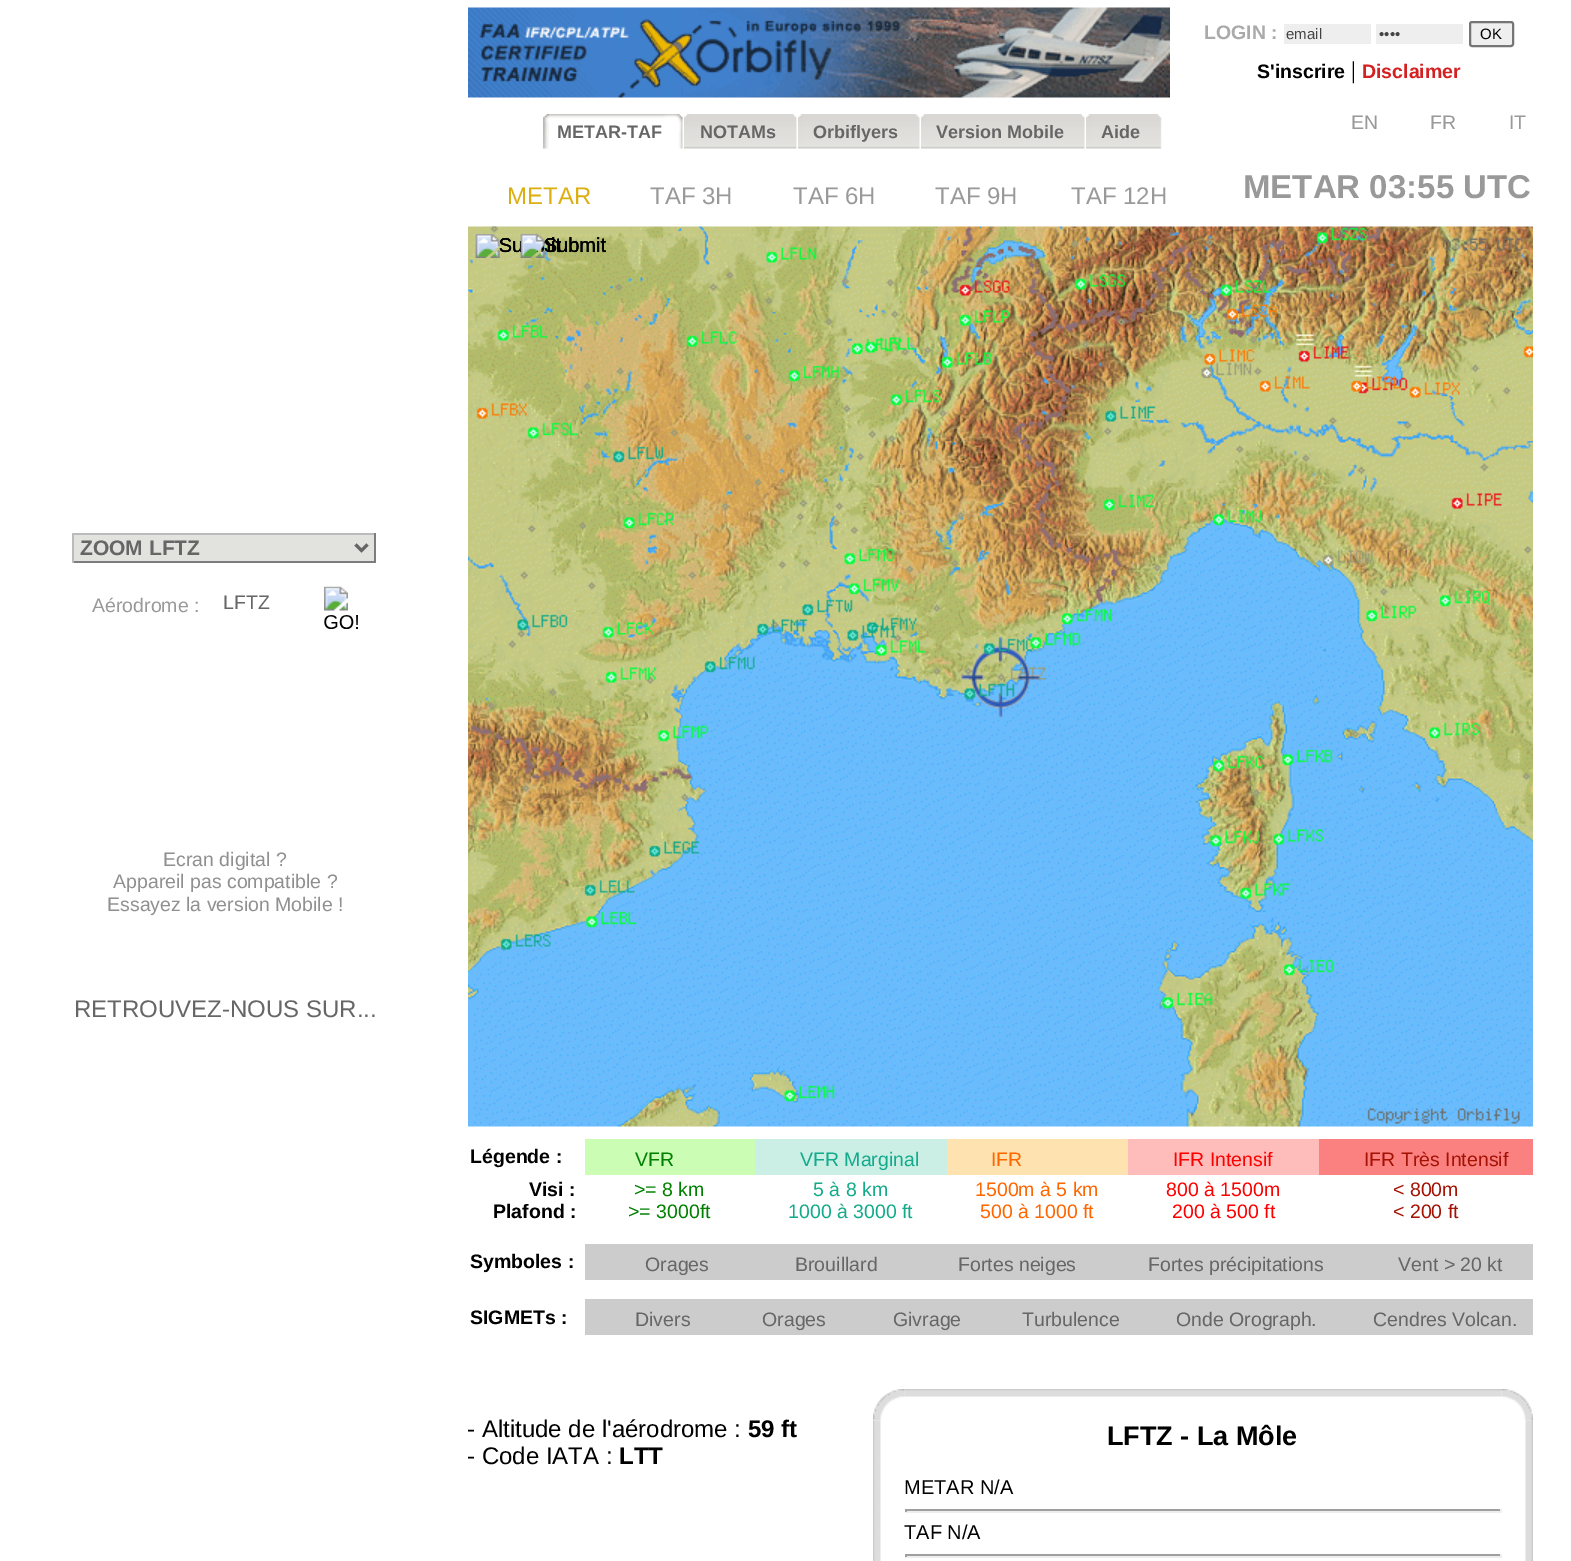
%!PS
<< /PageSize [1571 1561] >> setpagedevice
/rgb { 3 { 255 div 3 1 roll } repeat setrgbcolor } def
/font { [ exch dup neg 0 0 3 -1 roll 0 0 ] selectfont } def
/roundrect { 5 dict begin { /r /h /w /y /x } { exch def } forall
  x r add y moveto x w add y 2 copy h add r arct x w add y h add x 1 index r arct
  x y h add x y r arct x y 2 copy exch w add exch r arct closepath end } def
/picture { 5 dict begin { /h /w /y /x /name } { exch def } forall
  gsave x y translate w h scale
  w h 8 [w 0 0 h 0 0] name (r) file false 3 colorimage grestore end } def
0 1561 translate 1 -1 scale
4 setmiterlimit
255 255 255 rgb
0 0 1571 1561 rectfill
(img/1.rgb) 468 7 702 91 picture
238 238 238 rgb
1284 24 87 20 rectfill
1376 24 87 20 rectfill
239 239 239 rgb
1470 22 43 24 2 roundrect gsave fill grestore
118 118 118 rgb
2 setlinewidth
stroke
[
  [74 535 300 26 226 226 222]
  [72 533 303 2 187 187 187]
  [374 533 2 30 125 125 125]
  [72 561 303 2 125 125 125]
  [72 533 2 30 187 187 187]
] { aload pop rgb rectfill } forall
102 102 102 rgb
3 setlinewidth
355.5 544.5 moveto 361.5 550.5 lineto 367.5 544.5 lineto stroke
(img/2.rgb) 324 586 34 43 picture
(img/3.rgb) 543 114 8 35 picture
(img/4.rgb) 549 114 134 35 picture
(img/5.rgb) 684 114 6 35 picture
(img/6.rgb) 690 114 107 35 picture
(img/5.rgb) 798 114 6 35 picture
(img/7.rgb) 804 114 116 35 picture
(img/5.rgb) 921 114 6 35 picture
(img/8.rgb) 927 114 158 35 picture
(img/9.rgb) 1086 114 6 35 picture
(img/10.rgb) 1092 114 70 35 picture
(img/11.rgb) 468 226 1065 901 picture
(img/12.rgb) 476 226 1057 898 picture
(img/13.rgb) 475 234 86 24 picture
(img/15.rgb) 520 234 86 24 picture
(img/14.rgb) 475 234 86 24 picture
(img/16.rgb) 520 234 86 24 picture
[
  [585 1139 170 36 204 253 181]
  [755 1139 192 36 203 239 229]
  [947 1139 181 36 254 227 177]
  [1128 1139 191 36 254 188 186]
  [1319 1139 214 36 251 129 129]
  [585 1244 948 36 204 204 204]
  [585 1299 948 36 204 204 204]
] { aload pop rgb rectfill } forall
(img/18.rgb) 904 1389 598 8 picture
(img/20.rgb) 873 1420 8 141 picture
(img/17.rgb) 873 1389 32 32 picture
225 225 225 rgb
904 1391 1 5 rectfill
(img/21.rgb) 1525 1420 8 141 picture
(img/19.rgb) 1501 1389 32 32 picture
[
  [905 1509 597 2 159 159 159]
  [1500 1509 2 3 238 238 238]
  [905 1511 597 2 238 238 238]
  [905 1509 2 3 159 159 159]
  [905 1554 597 2 159 159 159]
  [1500 1554 2 3 238 238 238]
  [905 1556 597 2 238 238 238]
  [905 1554 2 3 159 159 159]
] { aload pop rgb rectfill } forall
/LiberationSans-Bold 19.5 font
170 170 170 rgb
1204 39 moveto (LOGIN :) show
/LiberationSans-Regular 15 font
68 68 68 rgb
1286 39 moveto (email) show
1379 39 moveto (••••) show
0 0 0 rgb
1480 39 moveto (OK) show
/LiberationSans-Bold 19.5 font
1257 78 moveto (S'inscrire) show
/LiberationSerif-Regular 24 font
1351 78 moveto (|) show
/LiberationSans-Bold 19.5 font
212 32 32 rgb
1362 78 moveto (Disclaimer) show
/LiberationSans-Regular 19.5 font
153 153 153 rgb
[
  [(EN) 1351 129]
  [(FR) 1430 129]
  [(IT) 1509 129]
] { aload pop moveto show } forall
/LiberationSans-Bold 21 font
102 102 102 rgb
80 555 moveto (ZOOM LFTZ) show
/LiberationSans-Regular 19.5 font
153 153 153 rgb
92 612 moveto (Aérodrome :) show
102 102 102 rgb
223 609 moveto (LFTZ) show
144 144 144 rgb
[
  [(Ecran digital ?) 163 866]
  [(Appareil pas compatible ?) 113 888]
  [(Essayez la version Mobile !) 107 911]
] { aload pop moveto show } forall
/LiberationSans-Regular 24 font
102 102 102 rgb
74 1017 moveto (RETROUVEZ-NOUS SUR...) show
/LiberationSans-Bold 18 font
[
  [(METAR-TAF) 557 138]
  [(NOTAMs) 700 138]
  [(Orbiflyers) 813 138]
  [(Version Mobile) 936 138]
  [(Aide) 1101 138]
] { aload pop moveto show } forall
/LiberationSans-Regular 24 font
220 175 17 rgb
507 204 moveto (METAR) show
153 153 153 rgb
[
  [(TAF 3H) 650 204]
  [(TAF 6H) 793 204]
  [(TAF 9H) 935 204]
  [(TAF 12H) 1071 204]
] { aload pop moveto show } forall
/LiberationSans-Bold 33 font
1243 198 moveto (METAR 03:55 UTC) show
/LiberationSans-Bold 19.5 font
0 0 0 rgb
470 1163 moveto (Légende :) show
/LiberationSans-Regular 19.5 font
0 128 0 rgb
635 1166 moveto (VFR) show
20 170 140 rgb
800 1166 moveto (VFR Marginal) show
255 102 0 rgb
991 1166 moveto (IFR) show
255 0 0 rgb
1173 1166 moveto (IFR Intensif) show
164 18 4 rgb
1364 1166 moveto (IFR Très Intensif) show
/LiberationSans-Bold 19.5 font
0 0 0 rgb
529 1196 moveto (Visi :) show
493 1218 moveto (Plafond :) show
/LiberationSans-Regular 19.5 font
0 128 0 rgb
634 1196 moveto (>= 8 km) show
628 1218 moveto (>= 3000ft) show
20 170 140 rgb
813 1196 moveto (5 à 8 km) show
788 1218 moveto (1000 à 3000 ft) show
255 102 0 rgb
975 1196 moveto (1500m à 5 km) show
980 1218 moveto (500 à 1000 ft) show
255 0 0 rgb
1166 1196 moveto (800 à 1500m) show
1172 1218 moveto (200 à 500 ft) show
164 18 4 rgb
1393 1196 moveto (< 800m) show
1393 1218 moveto (< 200 ft) show
/LiberationSans-Bold 19.5 font
0 0 0 rgb
470 1268 moveto (Symboles :) show
/LiberationSans-Regular 19.5 font
102 102 102 rgb
[
  [(Orages) 645 1271]
  [(Brouillard) 795 1271]
  [(Fortes neiges) 958 1271]
  [(Fortes précipitations) 1148 1271]
  [(Vent > 20 kt) 1398 1271]
] { aload pop moveto show } forall
/LiberationSans-Bold 19.5 font
0 0 0 rgb
470 1324 moveto (SIGMETs :) show
/LiberationSans-Regular 19.5 font
102 102 102 rgb
[
  [(Divers) 635 1326]
  [(Orages) 762 1326]
  [(Givrage) 893 1326]
  [(Turbulence) 1022 1326]
  [(Onde Orograph.) 1176 1326]
  [(Cendres Volcan.) 1373 1326]
] { aload pop moveto show } forall
/LiberationSans-Regular 24 font
0 0 0 rgb
467 1437 moveto (- Altitude de l'aérodrome :) show
/LiberationSans-Bold 24 font
748 1437 moveto (59 ft) show
/LiberationSans-Regular 24 font
467 1464 moveto (- Code IATA :) show
/LiberationSans-Bold 24 font
619 1464 moveto (LTT) show
/LiberationSans-Bold 27 font
1107 1445 moveto (LFTZ - La Môle) show
/LiberationSans-Regular 20 font
904 1494 moveto (METAR N/A) show
904 1539 moveto (TAF N/A) show
showpage
